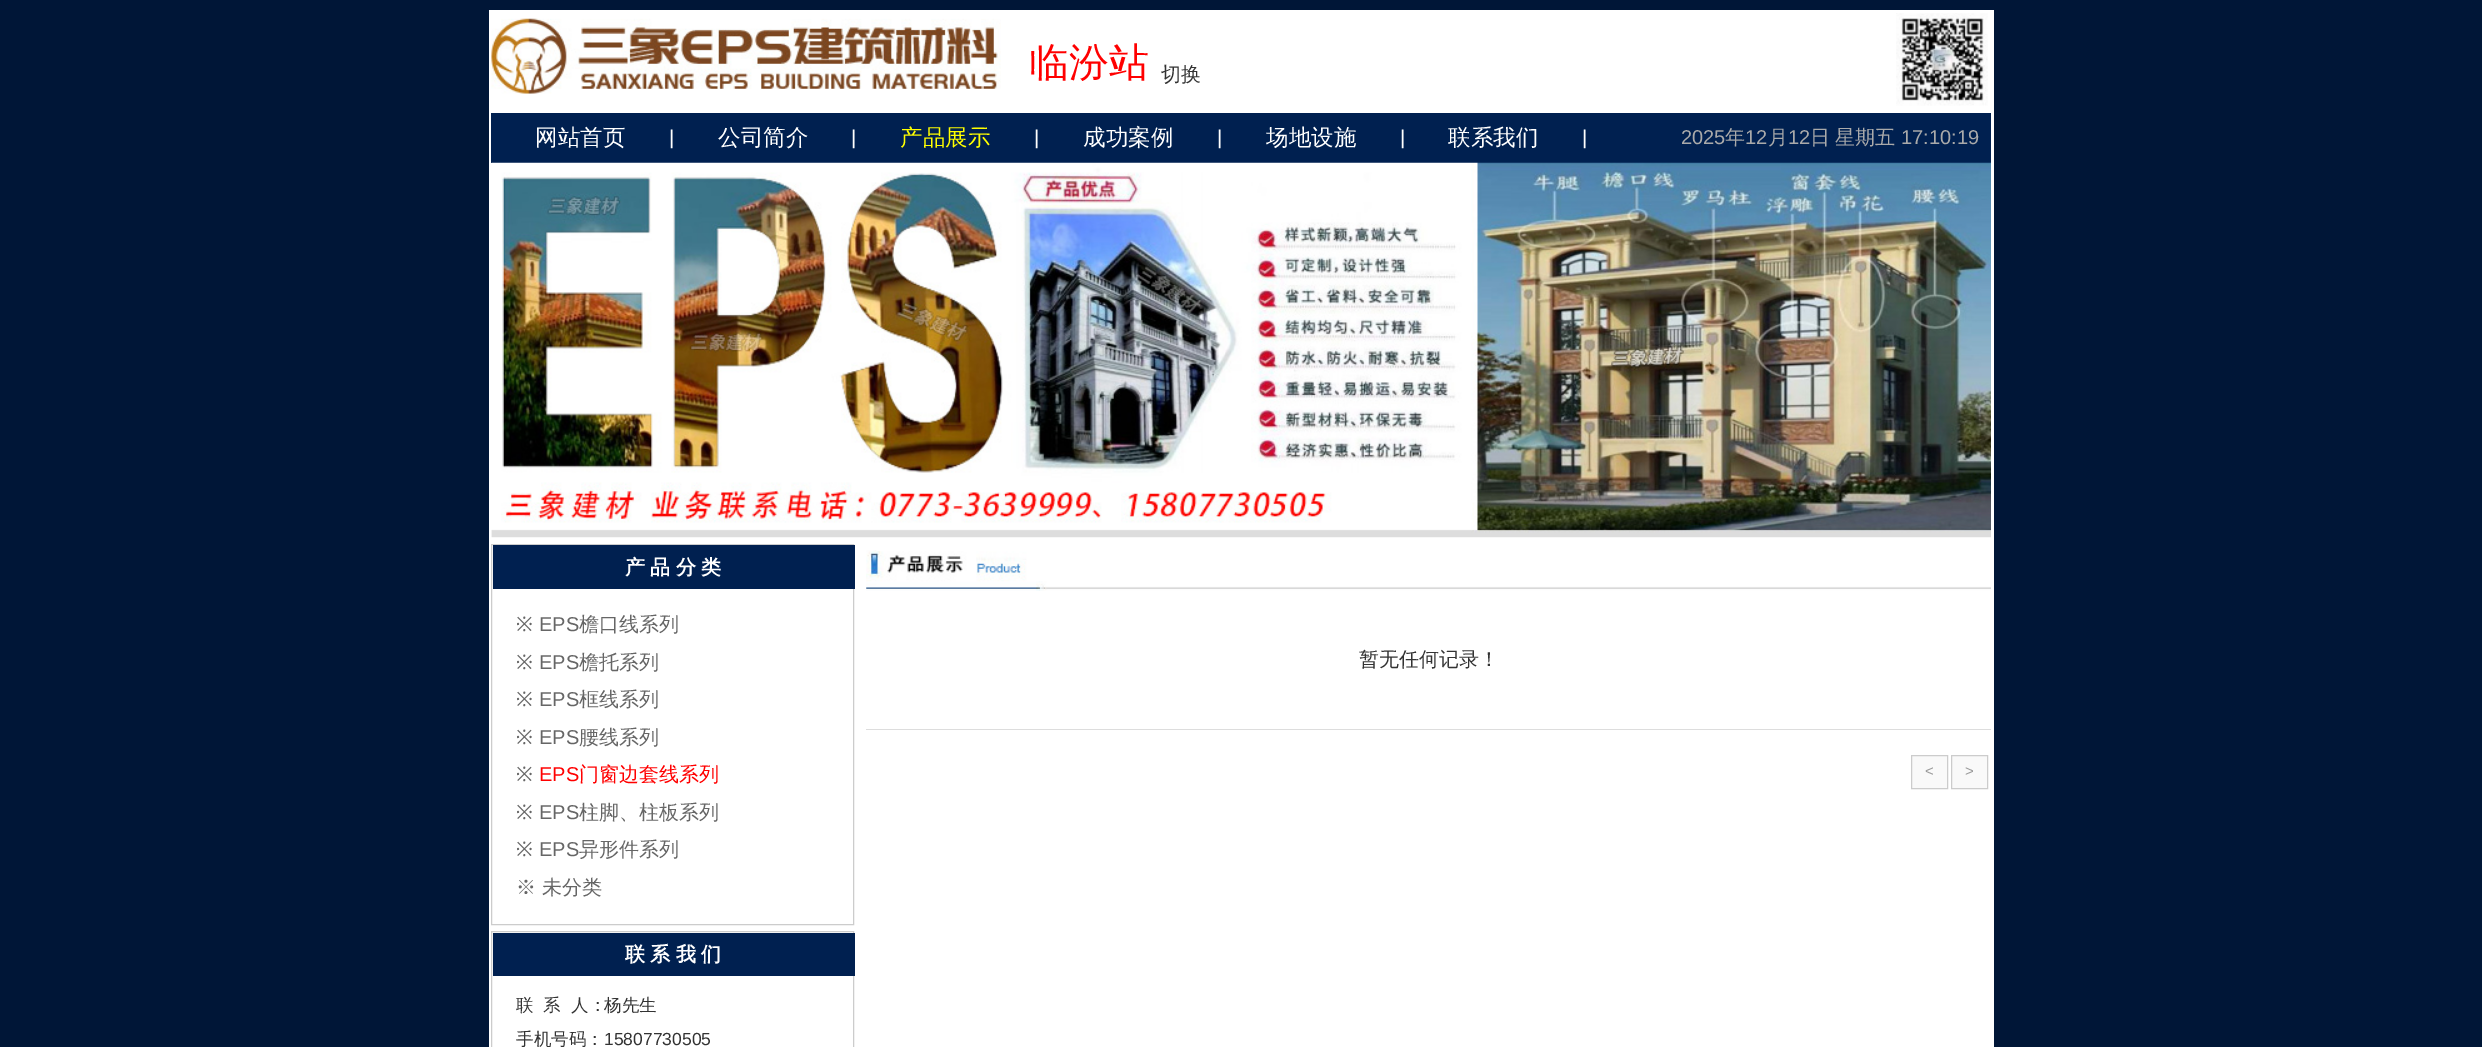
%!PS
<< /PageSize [2482 1047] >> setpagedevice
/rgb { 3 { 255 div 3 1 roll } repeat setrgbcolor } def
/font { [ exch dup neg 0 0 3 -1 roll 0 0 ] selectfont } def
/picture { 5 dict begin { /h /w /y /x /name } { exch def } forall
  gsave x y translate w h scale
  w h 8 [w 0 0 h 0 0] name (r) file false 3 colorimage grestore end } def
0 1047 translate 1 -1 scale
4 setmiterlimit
0 22 55 rgb
0 0 2482 1047 rectfill
255 255 255 rgb
489 10 1505 1037 rectfill
(img/1.rgb) 491 18 510 76 picture
(img/2.rgb) 1896 13 92 93 picture
0 32 80 rgb
491 113 1500 50 rectfill
(img/3.rgb) 491 162 1500 376 picture
204 204 204 rgb
491.5 544.5 362 380 rectstroke
0 32 80 rgb
493 545 362 44 rectfill
204 204 204 rgb
491.5 931.5 362 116 rectstroke
0 32 80 rgb
493 933 362 43 rectfill
(img/4.rgb) 866 550 1125 41 picture
221 221 221 rgb
866 729 1125 1 rectfill
249 249 249 rgb
1911.5 755.5 moveto 1947.5 755.5 lineto 1947.5 788.5 lineto 1911.5 788.5 lineto closepath gsave fill grestore
204 204 204 rgb
stroke
249 249 249 rgb
1951.5 755.5 moveto 1987.5 755.5 lineto 1987.5 788.5 lineto 1951.5 788.5 lineto closepath gsave fill grestore
204 204 204 rgb
stroke
/WenQuanYiZenHei-Medium 40 font
255 0 0 rgb
1029 76 moveto (临汾站) show
/WenQuanYiZenHei-Medium 20 font
51 51 51 rgb
1161 81 moveto (切换) show
/WenQuanYiZenHei-Medium 22.5 font
255 255 255 rgb
535 145 moveto (网站首页) show
/LiberationSans-Regular 20 font
669 144 moveto (|) show
/WenQuanYiZenHei-Medium 22.5 font
718 145 moveto (公司简介) show
/LiberationSans-Regular 20 font
851 144 moveto (|) show
/WenQuanYiZenHei-Medium 22.5 font
255 255 0 rgb
900 145 moveto (产品展示) show
/LiberationSans-Regular 20 font
255 255 255 rgb
1034 144 moveto (|) show
/WenQuanYiZenHei-Medium 22.5 font
1083 145 moveto (成功案例) show
/LiberationSans-Regular 20 font
1217 144 moveto (|) show
/WenQuanYiZenHei-Medium 22.5 font
1266 145 moveto (场地设施) show
/LiberationSans-Regular 20 font
1400 144 moveto (|) show
/WenQuanYiZenHei-Medium 22.5 font
1448 145 moveto (联系我们) show
/LiberationSans-Regular 20 font
1582 144 moveto (|) show
170 170 170 rgb
1681 144 moveto (2025) show
/WenQuanYiZenHei-Medium 20 font
1725 144 moveto (年) show
/LiberationSans-Regular 20 font
1745 144 moveto (12) show
/WenQuanYiZenHei-Medium 20 font
1768 144 moveto (月) show
/LiberationSans-Regular 20 font
1788 144 moveto (12) show
/WenQuanYiZenHei-Medium 20 font
1810 144 moveto -0.5 0 32 (日 星期五) widthshow
/LiberationSans-Regular 20 font
1901 144 moveto (17:10:19) show
/WenQuanYiZenHei-Bold 20 font
255 255 255 rgb
625 574 moveto -0.5 0 32 (产 品 分 类) widthshow
/NotoSans-Regular 20 font
102 102 102 rgb
516 631 moveto (※) show
/LiberationSans-Regular 20 font
539 631 moveto (EPS) show
/WenQuanYiZenHei-Medium 20 font
579 631 moveto (檐口线系列) show
/NotoSans-Regular 20 font
516 669 moveto (※) show
/LiberationSans-Regular 20 font
539 669 moveto (EPS) show
/WenQuanYiZenHei-Medium 20 font
579 669 moveto (檐托系列) show
/NotoSans-Regular 20 font
516 706 moveto (※) show
/LiberationSans-Regular 20 font
539 706 moveto (EPS) show
/WenQuanYiZenHei-Medium 20 font
579 706 moveto (框线系列) show
/NotoSans-Regular 20 font
516 744 moveto (※) show
/LiberationSans-Regular 20 font
539 744 moveto (EPS) show
/WenQuanYiZenHei-Medium 20 font
579 744 moveto (腰线系列) show
/NotoSans-Regular 20 font
516 781 moveto (※) show
/LiberationSans-Regular 20 font
255 0 0 rgb
539 781 moveto (EPS) show
/WenQuanYiZenHei-Medium 20 font
579 781 moveto (门窗边套线系列) show
/NotoSans-Regular 20 font
102 102 102 rgb
516 819 moveto (※) show
/LiberationSans-Regular 20 font
539 819 moveto (EPS) show
/WenQuanYiZenHei-Medium 20 font
579 819 moveto (柱脚、柱板系列) show
/NotoSans-Regular 20 font
516 856 moveto (※) show
/LiberationSans-Regular 20 font
539 856 moveto (EPS) show
/WenQuanYiZenHei-Medium 20 font
[
  [(异形件系列) 579 856]
  [(※) 516 894]
  [(未分类) 542 894]
] { aload pop moveto show } forall
/WenQuanYiZenHei-Bold 20 font
255 255 255 rgb
625 961 moveto -0.5 0 32 (联 系 我 们) widthshow
/WenQuanYiZenHei-Medium 17.5 font
51 51 51 rgb
[
  [(联) 516 1011]
  [(系) 543 1011]
  [(人：) 571 1011]
  [(杨先生) 604 1011]
  [(手机号码：) 516 1045]
] { aload pop moveto show } forall
/LiberationSans-Regular 17.5 font
604 1045 moveto (15807730505) show
/WenQuanYiZenHei-Medium 20 font
1359 666 moveto (暂无任何记录！) show
/LiberationSans-Regular 15 font
153 153 153 rgb
1925 776 moveto (<) show
1965 776 moveto (>) show
showpage
